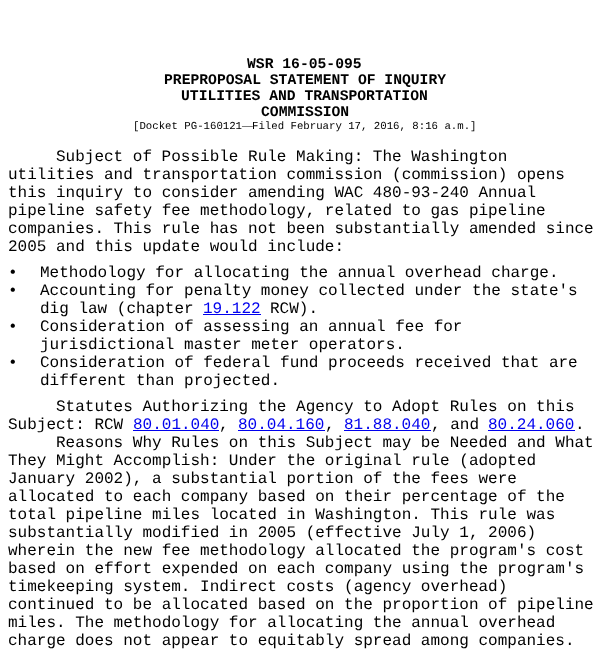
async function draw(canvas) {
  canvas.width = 609;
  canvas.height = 654;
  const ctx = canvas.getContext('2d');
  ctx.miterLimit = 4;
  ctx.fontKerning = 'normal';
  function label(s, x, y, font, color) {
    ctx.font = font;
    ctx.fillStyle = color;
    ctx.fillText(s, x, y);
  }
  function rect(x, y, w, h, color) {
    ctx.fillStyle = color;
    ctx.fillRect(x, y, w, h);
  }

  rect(0, 0, 609, 654, '#fff');
  label('WSR 16-05-095', 247, 68, 'bold 14.7px Liberation Mono', '#000');
  label('PREPROPOSAL STATEMENT OF INQUIRY', 164, 84, 'bold 14.7px Liberation Mono', '#000');
  label('UTILITIES AND TRANSPORTATION', 181, 100, 'bold 14.7px Liberation Mono', '#000');
  label('COMMISSION', 261, 116, 'bold 14.7px Liberation Mono', '#000');
  label('[Docket PG-160121', 133, 129, '10.7px Liberation Mono', '#000');
  label('—', 242, 129, '10.7px Liberation Serif', '#000');
  label('Filed February 17, 2016, 8:16 a.m.]', 252, 129, '10.7px Liberation Mono', '#000');
  label('Subject of Possible Rule Making: The Washington', 56, 161, '16px Liberation Mono', '#000');
  label('utilities and transportation commission (commission) opens', 8, 179, '16px Liberation Mono', '#000');
  label('this inquiry to consider amending WAC 480-93-240 Annual', 8, 197, '16px Liberation Mono', '#000');
  label('pipeline safety fee methodology, related to gas pipeline', 8, 215, '16px Liberation Mono', '#000');
  label('companies. This rule has not been substantially amended since', 8, 233, '16px Liberation Mono', '#000');
  label('2005 and this update would include:', 8, 251, '16px Liberation Mono', '#000');
  label('•', 8, 277, '16px Liberation Mono', '#000');
  label('Methodology for allocating the annual overhead charge.', 40, 277, '16px Liberation Mono', '#000');
  label('•', 8, 295, '16px Liberation Mono', '#000');
  label('Accounting for penalty money collected under the state\'s', 40, 295, '16px Liberation Mono', '#000');
  label('dig law (chapter', 40, 313, '16px Liberation Mono', '#000');
  label('19.122', 203, 313, '16px Liberation Mono', '#00e');
  rect(203, 314, 58, 1, '#00e');
  label('RCW).', 270, 313, '16px Liberation Mono', '#000');
  label('•', 8, 331, '16px Liberation Mono', '#000');
  label('Consideration of assessing an annual fee for', 40, 331, '16px Liberation Mono', '#000');
  label('jurisdictional master meter operators.', 40, 349, '16px Liberation Mono', '#000');
  label('•', 8, 367, '16px Liberation Mono', '#000');
  label('Consideration of federal fund proceeds received that are', 40, 367, '16px Liberation Mono', '#000');
  label('different than projected.', 40, 385, '16px Liberation Mono', '#000');
  label('Statutes Authorizing the Agency to Adopt Rules on this', 56, 411, '16px Liberation Mono', '#000');
  label('Subject: RCW', 8, 429, '16px Liberation Mono', '#000');
  label('80.01.040', 133, 429, '16px Liberation Mono', '#00e');
  rect(133, 430, 86, 1, '#00e');
  label(',', 219, 429, '16px Liberation Mono', '#000');
  label('80.04.160', 238, 429, '16px Liberation Mono', '#00e');
  rect(238, 430, 87, 1, '#00e');
  label(',', 325, 429, '16px Liberation Mono', '#000');
  label('81.88.040', 344, 429, '16px Liberation Mono', '#00e');
  rect(344, 430, 87, 1, '#00e');
  label(', and', 431, 429, '16px Liberation Mono', '#000');
  label('80.24.060', 488, 429, '16px Liberation Mono', '#00e');
  rect(488, 430, 87, 1, '#00e');
  label('.', 575, 429, '16px Liberation Mono', '#000');
  label('Reasons Why Rules on this Subject may be Needed and What', 56, 447, '16px Liberation Mono', '#000');
  label('They Might Accomplish: Under the original rule (adopted', 8, 465, '16px Liberation Mono', '#000');
  label('January 2002), a substantial portion of the fees were', 8, 483, '16px Liberation Mono', '#000');
  label('allocated to each company based on their percentage of the', 8, 501, '16px Liberation Mono', '#000');
  label('total pipeline miles located in Washington. This rule was', 8, 519, '16px Liberation Mono', '#000');
  label('substantially modified in 2005 (effective July 1, 2006)', 8, 537, '16px Liberation Mono', '#000');
  label('wherein the new fee methodology allocated the program\'s cost', 8, 555, '16px Liberation Mono', '#000');
  label('based on effort expended on each company using the program\'s', 8, 573, '16px Liberation Mono', '#000');
  label('timekeeping system. Indirect costs (agency overhead)', 8, 591, '16px Liberation Mono', '#000');
  label('continued to be allocated based on the proportion of pipeline', 8, 609, '16px Liberation Mono', '#000');
  label('miles. The methodology for allocating the annual overhead', 8, 627, '16px Liberation Mono', '#000');
  label('charge does not appear to equitably spread among companies.', 8, 645, '16px Liberation Mono', '#000');
}

draw(document.querySelector('canvas'));
